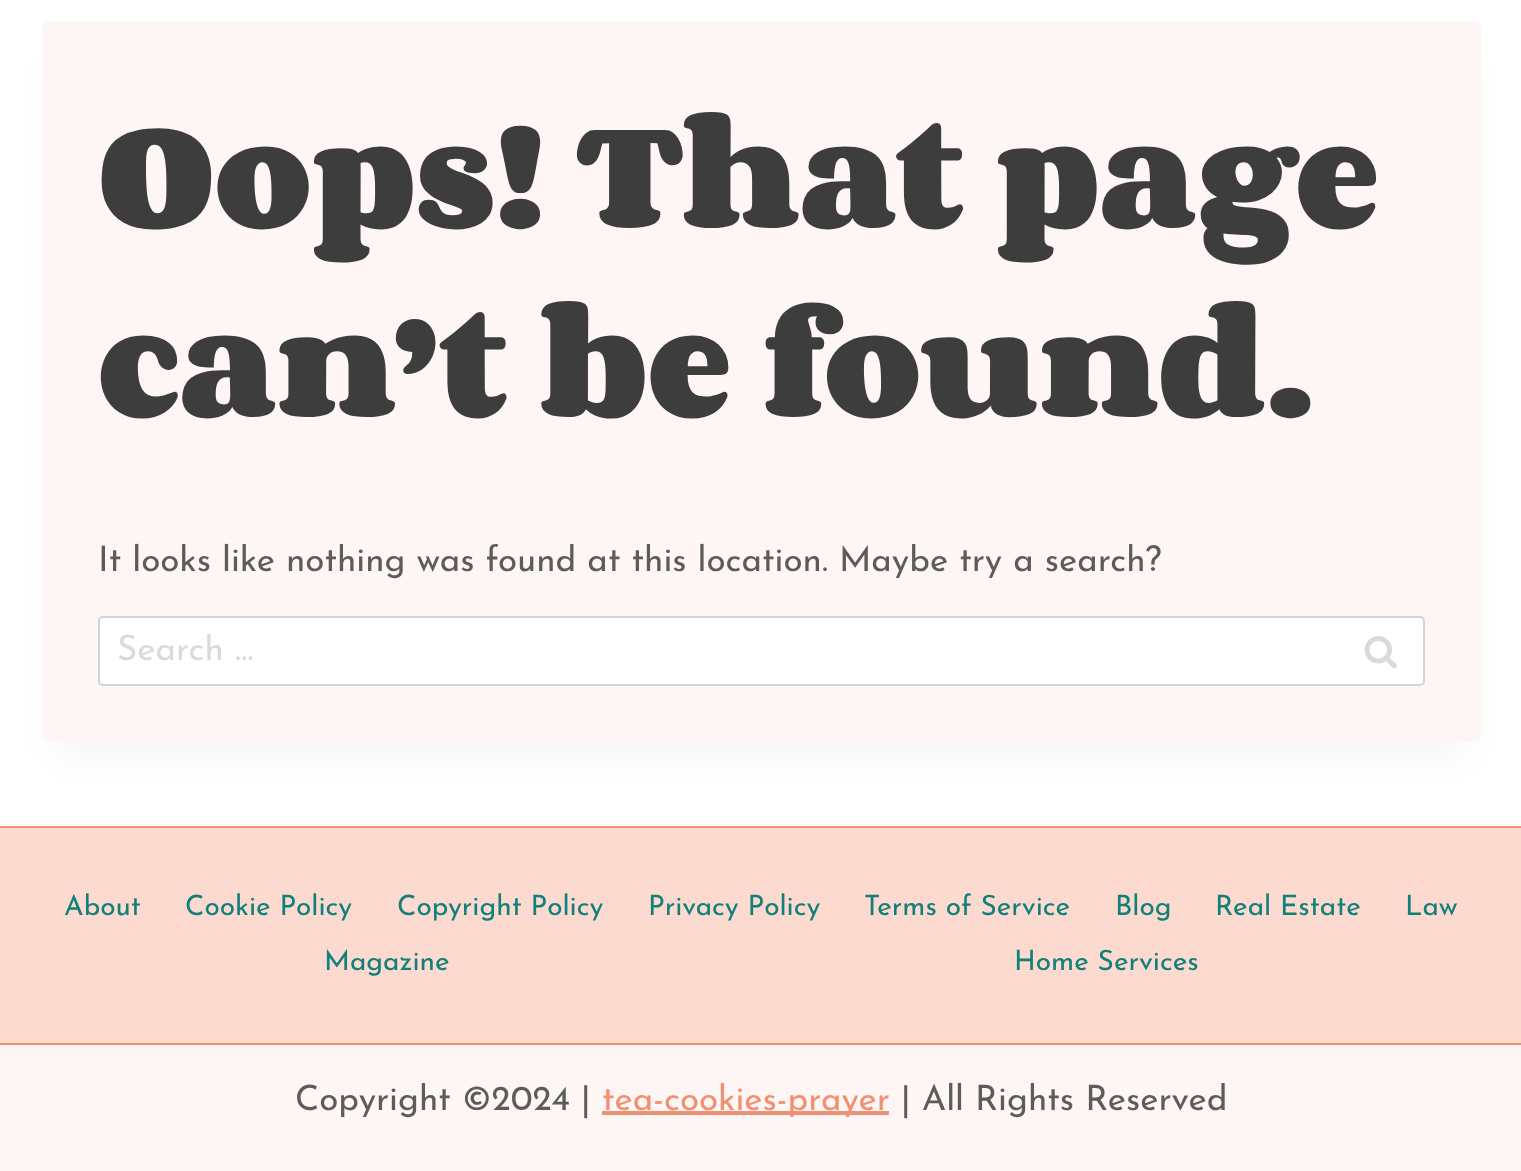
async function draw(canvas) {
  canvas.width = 1521;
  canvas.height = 1171;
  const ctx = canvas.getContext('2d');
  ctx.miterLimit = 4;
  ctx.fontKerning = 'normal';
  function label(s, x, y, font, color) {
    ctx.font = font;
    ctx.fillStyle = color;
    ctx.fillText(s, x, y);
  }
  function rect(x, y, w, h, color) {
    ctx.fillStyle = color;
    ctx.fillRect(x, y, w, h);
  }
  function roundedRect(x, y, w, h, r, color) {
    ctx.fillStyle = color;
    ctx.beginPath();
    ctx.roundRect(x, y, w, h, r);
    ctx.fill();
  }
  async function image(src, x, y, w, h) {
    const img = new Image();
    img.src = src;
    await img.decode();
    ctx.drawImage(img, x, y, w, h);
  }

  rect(0, 0, 1521, 1171, '#fff');
  ctx.fillStyle = '#0000000d';
  ctx.filter = 'blur(22px)';
  ctx.beginPath();
  ctx.rect(60, 65, 1403, 686);
  ctx.fill();
  ctx.filter = 'none';
  roundedRect(42, 21, 1439, 721, 7, '#fef6f4');
  label('Oops! That page', 98, 228, 'bold 126px Corben', '#3d3d3e');
  label('can’t be found.', 98, 417, 'bold 126px Corben', '#3d3d3e');
  label('It looks like nothing was found at this location. Maybe try a search?', 98, 571, '35px Josefin Sans', '#5c5c5c');
  ctx.fillStyle = '#fff';
  ctx.beginPath();
  ctx.roundRect(99, 617, 1325, 68, 4);
  ctx.fill();
  ctx.strokeStyle = '#cbd5e0';
  ctx.lineWidth = 2;
  ctx.stroke();
  ctx.save();
  ctx.beginPath();
  ctx.rect(117, 634, 1169, 35);
  ctx.clip();
  label('Search …', 117, 660, '35px Josefin Sans', '#d7dbde');
  ctx.restore();
  await image('assets/img1.png', 1364, 636, 33, 33);
  rect(0, 828, 1521, 215, '#fcdacf');
  rect(0, 826, 1521, 2, '#f19072');
  rect(0, 1043, 1521, 2, '#f19072');
  label('About', 64, 915, '28px Josefin Sans', '#12807a');
  label('Cookie Policy', 185, 915, '28px Josefin Sans', '#12807a');
  label('Copyright Policy', 397, 915, '28px Josefin Sans', '#12807a');
  label('Privacy Policy', 648, 915, '28px Josefin Sans', '#12807a');
  label('Terms of Service', 864, 915, '28px Josefin Sans', '#12807a');
  label('Blog', 1115, 915, '28px Josefin Sans', '#12807a');
  label('Real Estate', 1215, 915, '28px Josefin Sans', '#12807a');
  label('Law', 1405, 915, '28px Josefin Sans', '#12807a');
  label('Magazine', 324, 970, '28px Josefin Sans', '#12807a');
  label('Home Services', 1014, 970, '28px Josefin Sans', '#12807a');
  rect(0, 1045, 1521, 126, '#fef6f4');
  label('Copyright ©2024 |', 295, 1110, '35px Josefin Sans', '#5c5c5c');
  rect(602, 1111, 287, 4, '#f19072');
  label('tea-cookies-prayer', 602, 1110, '35px Josefin Sans', '#f19072');
  label('| All Rights Reserved', 901, 1110, '35px Josefin Sans', '#5c5c5c');
}

draw(document.querySelector('canvas'));
